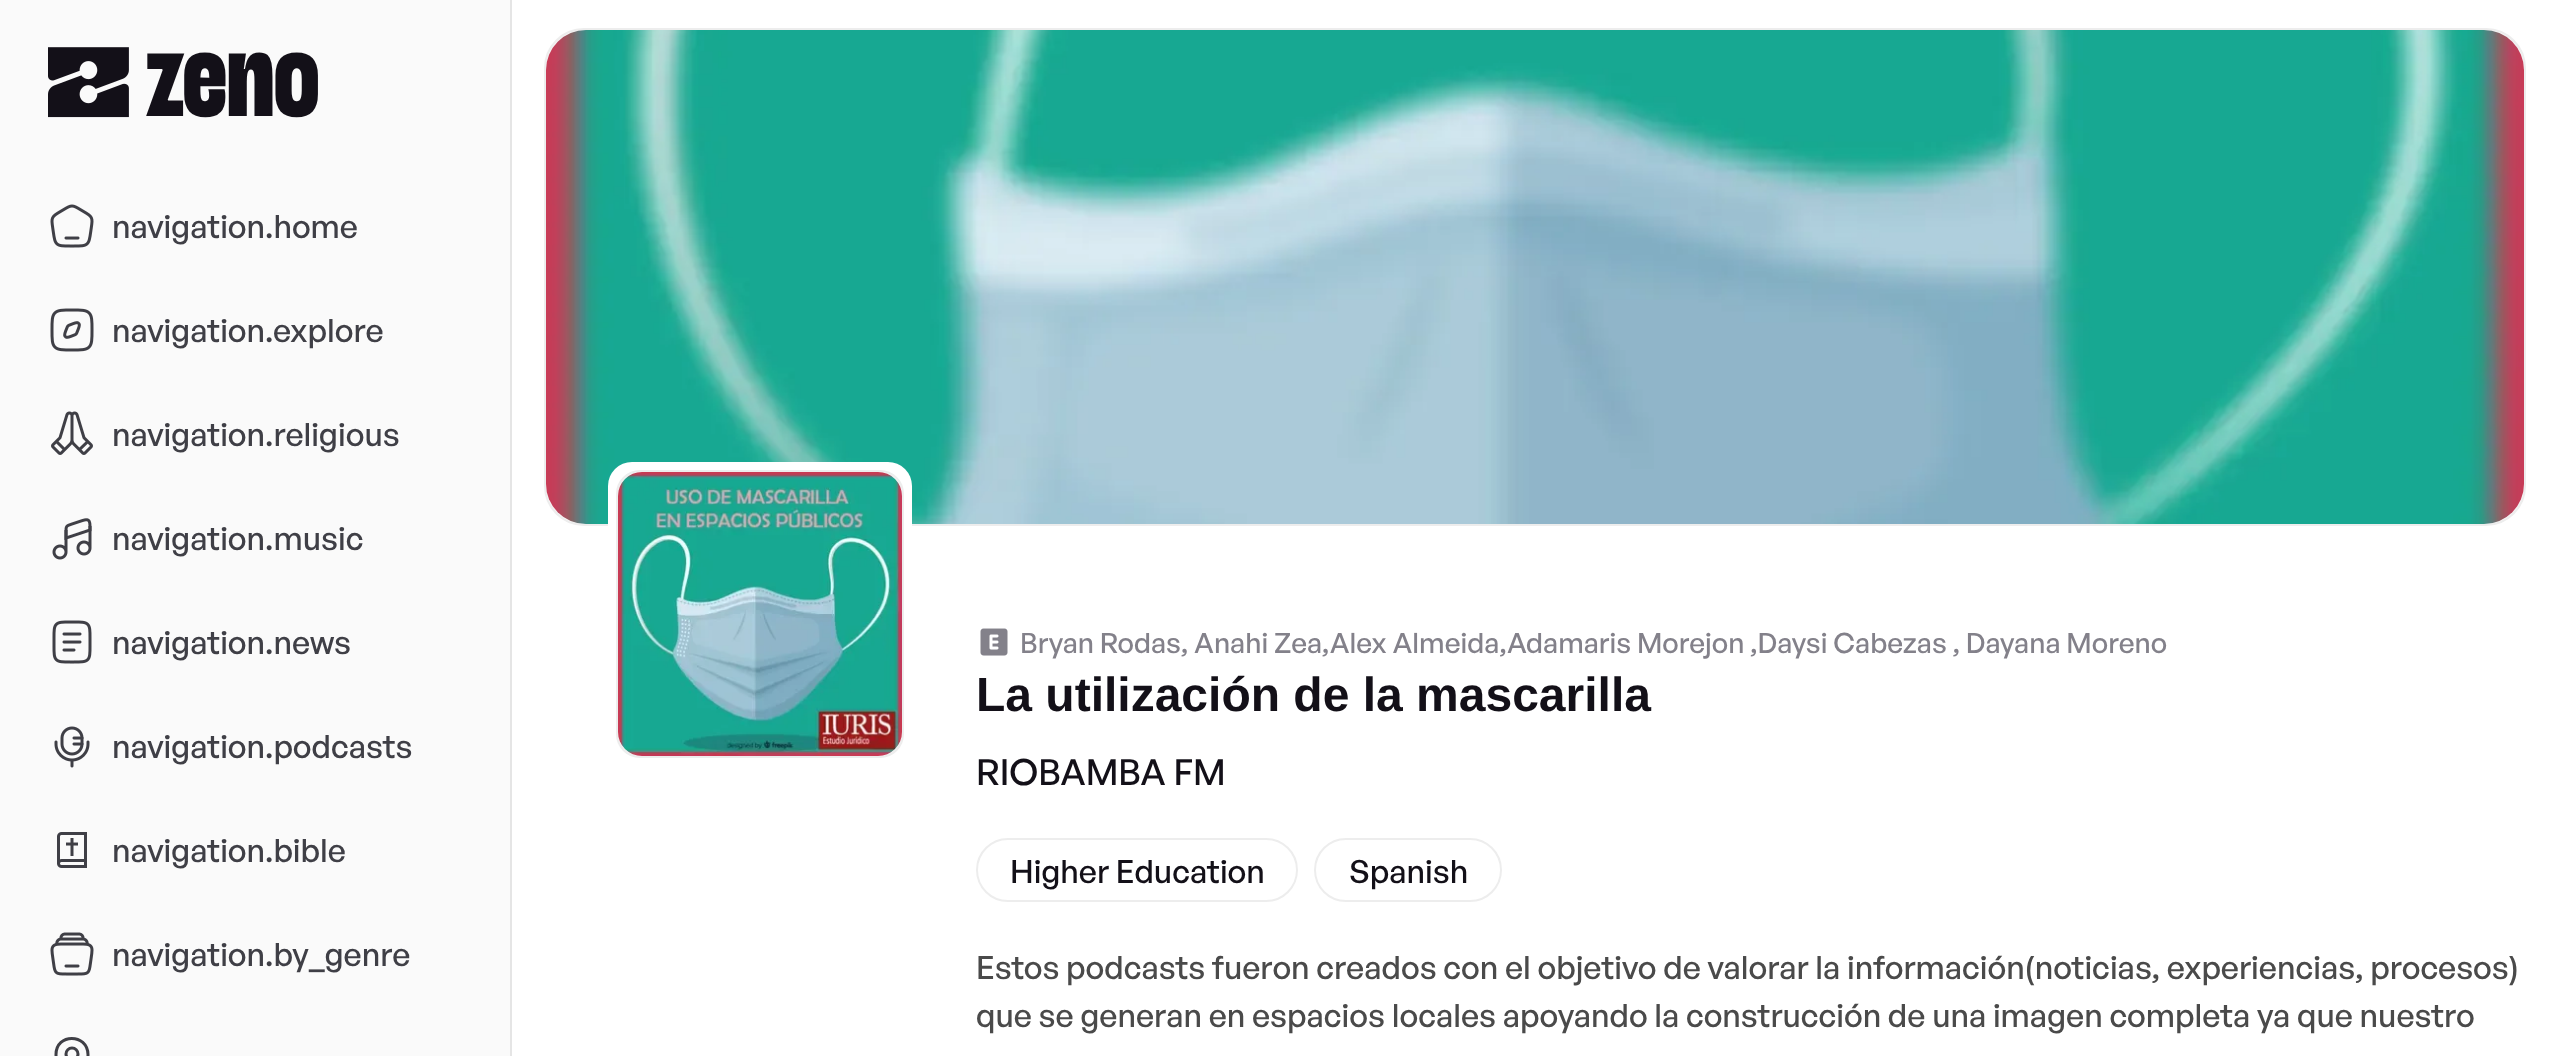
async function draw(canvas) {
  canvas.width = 2558;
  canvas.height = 1056;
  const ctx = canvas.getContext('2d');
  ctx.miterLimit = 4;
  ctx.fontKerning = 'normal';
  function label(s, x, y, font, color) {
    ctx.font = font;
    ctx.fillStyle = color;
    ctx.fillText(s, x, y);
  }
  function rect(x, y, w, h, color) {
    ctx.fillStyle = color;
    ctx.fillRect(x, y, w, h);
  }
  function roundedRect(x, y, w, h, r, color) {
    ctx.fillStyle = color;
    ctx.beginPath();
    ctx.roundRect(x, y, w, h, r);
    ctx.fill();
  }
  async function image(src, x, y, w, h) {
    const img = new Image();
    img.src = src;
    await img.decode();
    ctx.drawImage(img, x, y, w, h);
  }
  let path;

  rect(0, 0, 2558, 1056, '#fff');
  rect(510, 0, 2, 1056, '#e5e5e5');
  rect(0, 0, 510, 1056, '#fafafa');
  await image('assets/img1.png', 48, 47, 81, 71);
  label('zeno', 146, 116, '120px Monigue', '#131018');
  await image('assets/img2.png', 50, 204, 44, 44);
  label('navigation.home', 112, 238, '500 32px General Sans', '#3f3f46');
  await image('assets/img3.png', 50, 308, 44, 44);
  label('navigation.explore', 112, 342, '500 32px General Sans', '#3f3f46');
  await image('assets/img4.png', 51, 411, 42, 44);
  label('navigation.religious', 112, 446, '500 32px General Sans', '#3f3f46');
  await image('assets/img5.png', 52, 518, 40, 42);
  label('navigation.music', 112, 550, '500 32px General Sans', '#3f3f46');
  await image('assets/img6.png', 52, 620, 40, 44);
  label('navigation.news', 112, 654, '500 32px General Sans', '#3f3f46');
  await image('assets/img7.png', 54, 726, 36, 42);
  label('navigation.podcasts', 112, 758, '500 32px General Sans', '#3f3f46');
  await image('assets/img8.png', 57, 832, 30, 36);
  label('navigation.bible', 112, 862, '500 32px General Sans', '#3f3f46');
  await image('assets/img9.png', 50, 932, 44, 44);
  label('navigation.by_genre', 112, 966, '500 32px General Sans', '#3f3f46');
  path = new Path2D('M56 1054.5C56 1033 87.5 1033 88 1054.5C88 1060 86 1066 82.5 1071C70 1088.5 56 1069 56 1054.5Z');
  ctx.strokeStyle = '#3f3f46';
  ctx.lineWidth = 3;
  ctx.stroke(path);
  ctx.beginPath();
  ctx.arc(72, 1054, 6, 0, 2 * Math.PI);
  ctx.stroke();
  ctx.fillStyle = '#f6f6f6';
  ctx.beginPath();
  ctx.roundRect(545, 29, 1980, 496, 39);
  ctx.fill();
  ctx.strokeStyle = '#ededed';
  ctx.lineWidth = 2;
  ctx.stroke();
  await image('assets/img10.png', 546, 30, 1978, 494);
  roundedRect(608, 462, 304, 304, 24, '#fff');
  ctx.fillStyle = '#f6f6f6';
  ctx.beginPath();
  ctx.roundRect(617, 471, 286, 286, 23);
  ctx.fill();
  ctx.stroke();
  await image('assets/img11.png', 618, 472, 284, 284);
  await image('assets/img12.png', 980, 628, 28, 28);
  label('Bryan Rodas, Anahi Zea,Alex Almeida,Adamaris Morejon ,Daysi Cabezas , Dayana Moreno', 1020, 653, '500 28px General Sans', '#83818a');
  label('La utilización de la mascarilla', 976, 711, 'bold 48px Liberation Sans', '#131018');
  label('RIOBAMBA FM', 976, 785, '500 36px General Sans', '#131018');
  ctx.beginPath();
  ctx.roundRect(977, 839, 320, 62, 31);
  ctx.stroke();
  label('Higher Education', 1010, 883, '500 32px General Sans', '#131018');
  ctx.beginPath();
  ctx.roundRect(1315, 839, 186, 62, 31);
  ctx.stroke();
  label('Spanish', 1349, 883, '500 32px General Sans', '#131018');
  label('Estos podcasts fueron creados con el objetivo de valorar la información(noticias, experiencias, procesos)', 976, 979, '500 32px General Sans', '#4a4a4a');
  label('que se generan en espacios locales apoyando la construcción de una imagen completa ya que nuestro', 976, 1027, '500 32px General Sans', '#4a4a4a');
}

draw(document.querySelector('canvas'));
